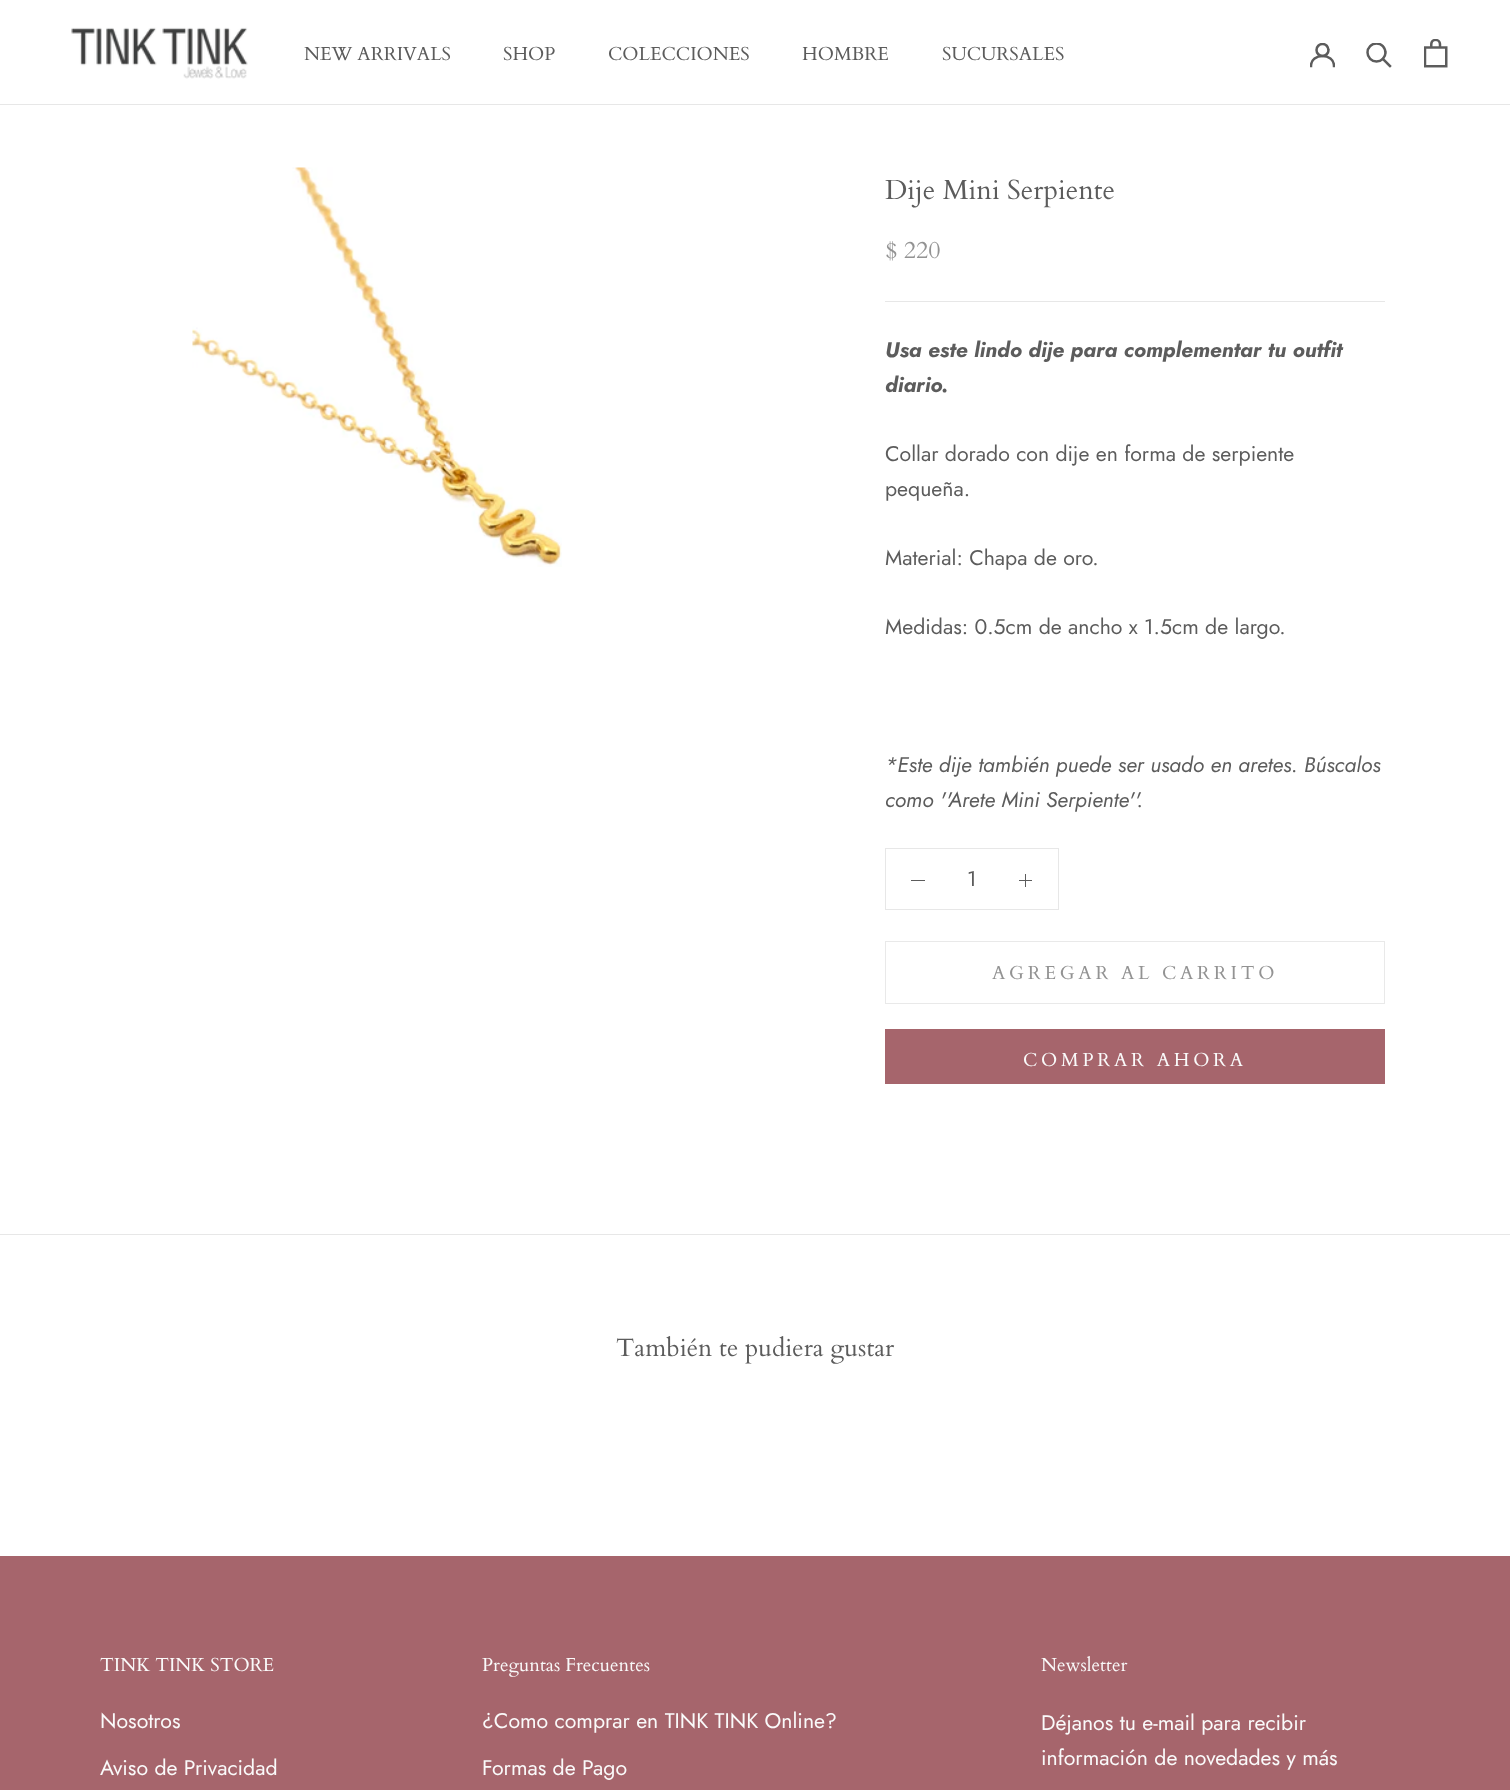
async function draw(canvas) {
  canvas.width = 1510;
  canvas.height = 1790;
  const ctx = canvas.getContext('2d');
  ctx.miterLimit = 4;
  ctx.fontKerning = 'normal';
  function label(s, x, y, font, color) {
    ctx.font = font;
    ctx.fillStyle = color;
    ctx.fillText(s, x, y);
  }
  function rect(x, y, w, h, color) {
    ctx.fillStyle = color;
    ctx.fillRect(x, y, w, h);
  }
  async function image(src, x, y, w, h) {
    const img = new Image();
    img.src = src;
    await img.decode();
    ctx.drawImage(img, x, y, w, h);
  }
  let path;

  rect(0, 0, 1510, 1790, '#fff');
  rect(0, 104, 1510, 1, '#e7e7e7');
  await image('assets/img1.png', 71, 27, 177, 52);
  label('NEW ARRIVALS', 304, 60, '18.75px Cardo', '#5c5c5c');
  label('SHOP', 503, 60, '18.75px Cardo', '#5c5c5c');
  label('COLECCIONES', 608, 60, '18.75px Cardo', '#5c5c5c');
  label('HOMBRE', 802, 60, '18.75px Cardo', '#5c5c5c');
  label('SUCURSALES', 942, 60, '18.75px Cardo', '#5c5c5c');
  ctx.save();
  ctx.beginPath();
  ctx.rect(1310, 43, 25, 25);
  ctx.clip();
  path = new Path2D('M1311 66C1311 52.5 1334 52.5 1334 66');
  ctx.strokeStyle = '#5c5c5c';
  ctx.lineWidth = 2.5;
  ctx.lineCap = 'square';
  ctx.stroke(path);
  ctx.beginPath();
  ctx.arc(1322.5, 50, 6, 0, 2 * Math.PI);
  ctx.stroke();
  ctx.restore();
  path = new Path2D('M1390 66L1383 59');
  ctx.strokeStyle = '#5c5c5c';
  ctx.lineWidth = 2.5;
  ctx.lineCap = 'square';
  ctx.stroke(path);
  ctx.save();
  ctx.beginPath();
  ctx.rect(1366, 43, 27, 26);
  ctx.clip();
  ctx.beginPath();
  ctx.arc(1376.5, 52.5, 9, 0, 2 * Math.PI);
  ctx.stroke();
  ctx.restore();
  await image('assets/img2.png', 1424, 39, 24, 29);
  await image('assets/img3.png', 192, 167, 370, 400);
  label('Dije Mini Serpiente', 885, 199, '27.5px Cardo', '#5c5c5c');
  label('$ 220', 885, 258, '24px Cardo', '#939393');
  rect(885, 301, 500, 1, '#e7e7e7');
  label('Usa este lindo dije para complementar tu outfit', 885, 357, 'italic bold 21.25px Jost', '#5c5c5c');
  label('diario.', 885, 392, 'italic bold 21.25px Jost', '#5c5c5c');
  label('Collar dorado con dije en forma de serpiente', 885, 461, '21.25px Jost', '#5c5c5c');
  label('pequeña.', 885, 496, '21.25px Jost', '#5c5c5c');
  label('Material: Chapa de oro.', 885, 565, '21.25px Jost', '#5c5c5c');
  label('Medidas: 0.5cm de ancho x 1.5cm de largo.', 885, 634, '21.25px Jost', '#5c5c5c');
  label('*Este dije también puede ser usado en aretes. Búscalos', 885, 772, 'italic 21.25px Jost', '#5c5c5c');
  label('como \'\'Arete Mini Serpiente\'\'.', 885, 807, 'italic 21.25px Jost', '#5c5c5c');
  ctx.strokeStyle = '#e7e7e7';
  ctx.lineWidth = 1;
  ctx.strokeRect(885.5, 848.5, 173, 61);
  rect(911, 880, 14, 1, '#5c5c5c');
  label('1', 967, 886, '21.25px Jost', '#5c5c5c');
  rect(1025, 874, 1, 13, '#5c5c5c');
  rect(1019, 880, 13, 1, '#5c5c5c');
  ctx.strokeStyle = '#e9e9e9';
  ctx.strokeRect(885.5, 941.5, 499, 62);
  ctx.letterSpacing = '3.75px';
  label('AGREGAR AL CARRITO', 992, 979, '18.75px Cardo', '#939393');
  ctx.strokeStyle = '#a6656c';
  ctx.strokeRect(885.5, 1029.5, 499, 54);
  rect(886, 1030, 498, 53, '#a6656c');
  label('COMPRAR AHORA', 1023, 1066, '18.75px Cardo', '#fafafa');
  rect(0, 1234, 1510, 1, '#e7e7e7');
  ctx.letterSpacing = '0px';
  label('También te pudiera gustar', 616, 1356, '25px Cardo', '#5c5c5c');
  rect(0, 1556, 1510, 234, '#a6656c');
  label('TINK TINK STORE', 100, 1671, '18.75px Cardo', '#fafafa');
  label('Nosotros', 100, 1728, '21.25px Jost', '#fafafa');
  label('Aviso de Privacidad', 100, 1775, '21.25px Jost', '#fafafa');
  label('Preguntas Frecuentes', 482, 1671, '18.75px Cardo', '#fafafa');
  label('¿Como comprar en TINK TINK Online?', 482, 1728, '21.25px Jost', '#fafafa');
  label('Formas de Pago', 482, 1775, '21.25px Jost', '#fafafa');
  label('Newsletter', 1041, 1671, '18.75px Cardo', '#fafafa');
  label('Déjanos tu e-mail para recibir', 1041, 1730, '21.25px Jost', '#fafafa');
  label('información de novedades y más', 1041, 1765, '21.25px Jost', '#fafafa');
}

draw(document.querySelector('canvas'));
